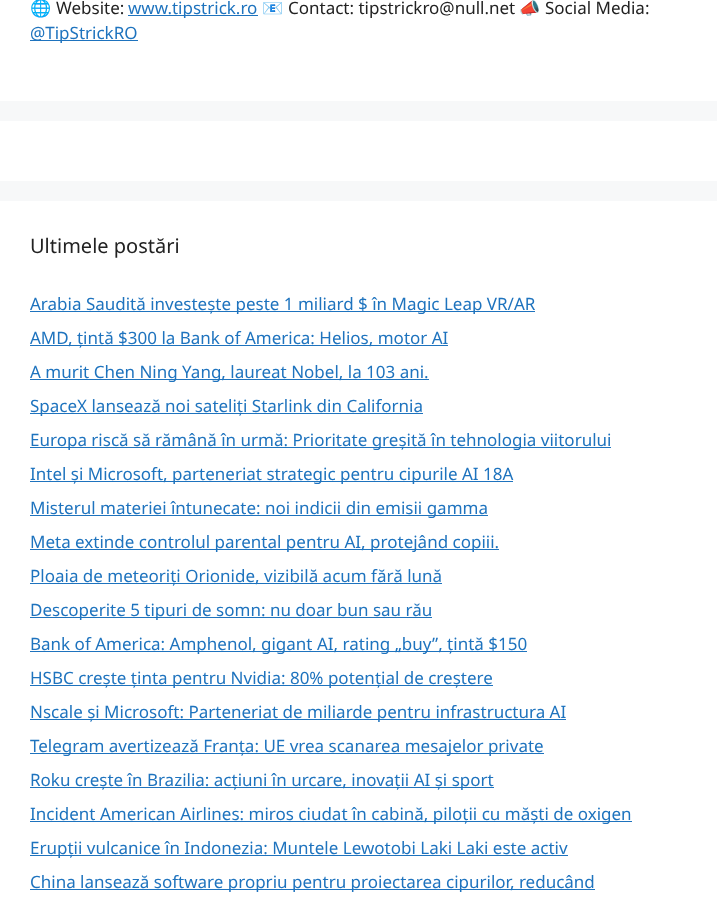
async function draw(canvas) {
  canvas.width = 717;
  canvas.height = 904;
  const ctx = canvas.getContext('2d');
  ctx.miterLimit = 4;
  ctx.fontKerning = 'normal';
  function label(s, x, y, font, color) {
    ctx.font = font;
    ctx.fillStyle = color;
    ctx.fillText(s, x, y);
  }
  function rect(x, y, w, h, color) {
    ctx.fillStyle = color;
    ctx.fillRect(x, y, w, h);
  }

  rect(0, 0, 717, 904, '#f7f8f9');
  rect(0, 0, 717, 101, '#fff');
  label('🌐', 30, 14, '17px Noto Color Emoji', '#222');
  label('Website:', 56, 14, '17px Noto Sans', '#222');
  rect(128, 15, 130, 1, '#1e73be');
  label('www.tipstrick.ro', 128, 14, '17px Noto Sans', '#1e73be');
  label('📧', 262, 14, '17px Noto Color Emoji', '#222');
  label('Contact: tipstrickro@null.net', 288, 14, '17px Noto Sans', '#222');
  label('📣', 519, 14, '17px Noto Color Emoji', '#222');
  label('Social Media:', 545, 14, '17px Noto Sans', '#222');
  rect(30, 40, 108, 1, '#1e73be');
  label('@TipStrickRO', 30, 39, '17px Noto Sans', '#1e73be');
  rect(0, 121, 717, 60, '#fff');
  rect(0, 201, 717, 703, '#fff');
  label('Ultimele postări', 30, 253, '20px Noto Sans', '#222');
  rect(30, 311, 505, 1, '#1e73be');
  label('Arabia Saudită investește peste 1 miliard $ în Magic Leap VR/AR', 30, 310, '17px Noto Sans', '#1e73be');
  rect(30, 345, 418, 1, '#1e73be');
  label('AMD, țintă $300 la Bank of America: Helios, motor AI', 30, 344, '17px Noto Sans', '#1e73be');
  rect(30, 379, 399, 1, '#1e73be');
  label('A murit Chen Ning Yang, laureat Nobel, la 103 ani.', 30, 378, '17px Noto Sans', '#1e73be');
  rect(30, 413, 393, 1, '#1e73be');
  label('SpaceX lansează noi sateliți Starlink din California', 30, 412, '17px Noto Sans', '#1e73be');
  rect(30, 447, 581, 1, '#1e73be');
  label('Europa riscă să rămână în urmă: Prioritate greșită în tehnologia viitorului', 30, 446, '17px Noto Sans', '#1e73be');
  rect(30, 481, 483, 1, '#1e73be');
  label('Intel și Microsoft, parteneriat strategic pentru cipurile AI 18A', 30, 480, '17px Noto Sans', '#1e73be');
  rect(30, 515, 458, 1, '#1e73be');
  label('Misterul materiei întunecate: noi indicii din emisii gamma', 30, 514, '17px Noto Sans', '#1e73be');
  rect(30, 549, 469, 1, '#1e73be');
  label('Meta extinde controlul parental pentru AI, protejând copiii.', 30, 548, '17px Noto Sans', '#1e73be');
  rect(30, 583, 412, 1, '#1e73be');
  label('Ploaia de meteoriți Orionide, vizibilă acum fără lună', 30, 582, '17px Noto Sans', '#1e73be');
  rect(30, 617, 402, 1, '#1e73be');
  label('Descoperite 5 tipuri de somn: nu doar bun sau rău', 30, 616, '17px Noto Sans', '#1e73be');
  rect(30, 651, 497, 1, '#1e73be');
  label('Bank of America: Amphenol, gigant AI, rating „buy”, țintă $150', 30, 650, '17px Noto Sans', '#1e73be');
  rect(30, 685, 463, 1, '#1e73be');
  label('HSBC crește ținta pentru Nvidia: 80% potențial de creștere', 30, 684, '17px Noto Sans', '#1e73be');
  rect(30, 719, 536, 1, '#1e73be');
  label('Nscale și Microsoft: Parteneriat de miliarde pentru infrastructura AI', 30, 718, '17px Noto Sans', '#1e73be');
  rect(30, 753, 514, 1, '#1e73be');
  label('Telegram avertizează Franța: UE vrea scanarea mesajelor private', 30, 752, '17px Noto Sans', '#1e73be');
  rect(30, 787, 464, 1, '#1e73be');
  label('Roku crește în Brazilia: acțiuni în urcare, inovații AI și sport', 30, 786, '17px Noto Sans', '#1e73be');
  rect(30, 821, 602, 1, '#1e73be');
  label('Incident American Airlines: miros ciudat în cabină, piloții cu măști de oxigen', 30, 820, '17px Noto Sans', '#1e73be');
  rect(30, 855, 538, 1, '#1e73be');
  label('Erupții vulcanice în Indonezia: Muntele Lewotobi Laki Laki este activ', 30, 854, '17px Noto Sans', '#1e73be');
  rect(30, 889, 565, 1, '#1e73be');
  label('China lansează software propriu pentru proiectarea cipurilor, reducând', 30, 888, '17px Noto Sans', '#1e73be');
}

draw(document.querySelector('canvas'));
